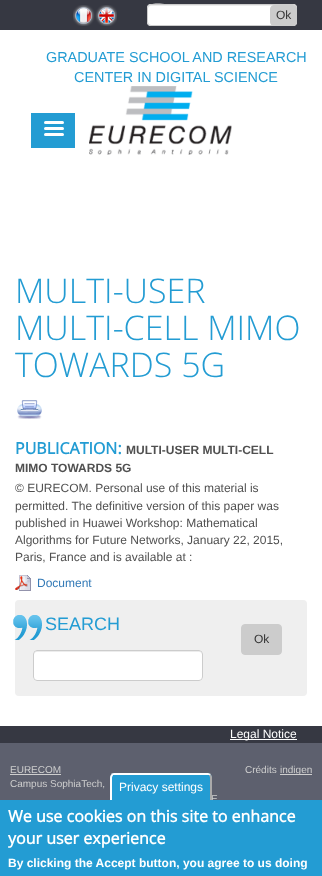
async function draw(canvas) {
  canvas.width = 322;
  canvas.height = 876;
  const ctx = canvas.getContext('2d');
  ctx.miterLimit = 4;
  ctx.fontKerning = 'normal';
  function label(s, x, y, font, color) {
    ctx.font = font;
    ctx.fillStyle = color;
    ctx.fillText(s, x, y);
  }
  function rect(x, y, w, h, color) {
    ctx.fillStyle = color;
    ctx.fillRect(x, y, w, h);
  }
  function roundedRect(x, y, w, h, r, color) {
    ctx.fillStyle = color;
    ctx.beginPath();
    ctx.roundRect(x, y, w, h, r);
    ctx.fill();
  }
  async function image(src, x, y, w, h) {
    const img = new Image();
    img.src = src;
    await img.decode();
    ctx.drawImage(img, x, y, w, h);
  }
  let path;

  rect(0, 0, 322, 876, '#fff');
  rect(0, 0, 322, 30, '#363842');
  await image('assets/img1.png', 73, 5, 22, 21);
  await image('assets/img2.png', 95, 5, 22, 21);
  roundedRect(147, 4, 150, 22, 4, '#fff');
  ctx.fillStyle = '#ececec';
  path = new Path2D('M151 6H293C295 6 296 7 296 9C296 7 296 6 294 5H175C167 5 148 0 148 9C148 7 149 6 151 6Z');
  ctx.fill(path);
  ctx.beginPath();
  ctx.roundRect(147.5, 4.5, 149, 21, 3.5);
  ctx.strokeStyle = '#ccc';
  ctx.stroke();
  ctx.fillStyle = '#ccc';
  ctx.beginPath();
  ctx.roundRect(270.5, 5.5, 26, 20, 3.5);
  ctx.fill();
  ctx.stroke();
  label('Ok', 276, 19, '12px Liberation Sans', '#333');
  label('GRADUATE SCHOOL AND RESEARCH', 46, 62, '14.4px Liberation Sans', '#239cd3');
  label('CENTER IN DIGITAL SCIENCE', 74, 82, '14.4px Liberation Sans', '#239cd3');
  await image('assets/img3.png', 89, 86, 143, 69);
  rect(31, 113, 44, 35, '#239cd3');
  roundedRect(44, 121, 20, 3, 1.5, '#fff');
  roundedRect(44, 127, 20, 3, 1.5, '#fff');
  roundedRect(44, 133, 20, 3, 1.5, '#fff');
  label('MULTI-USER', 15, 303, '300 34px Open Sans', '#239cd3');
  label('MULTI-CELL MIMO', 15, 340, '300 34px Open Sans', '#239cd3');
  label('TOWARDS 5G', 15, 377, '300 34px Open Sans', '#239cd3');
  await image('assets/img4.png', 17, 400, 25, 19);
  label('PUBLICATION:', 15, 454, 'bold 16px Open Sans', '#239cd3');
  label('MULTI-USER MULTI-CELL', 126, 454, 'bold 12px Liberation Sans', '#505050');
  label('MIMO TOWARDS 5G', 15, 472, 'bold 12px Liberation Sans', '#505050');
  label('© EURECOM. Personal use of this material is', 15, 492, '12px Liberation Sans', '#505050');
  label('permitted. The definitive version of this paper was', 15, 510, '12px Liberation Sans', '#505050');
  label('published in Huawei Workshop: Mathematical', 15, 527, '12px Liberation Sans', '#505050');
  label('Algorithms for Future Networks, January 22, 2015,', 15, 544, '12px Liberation Sans', '#505050');
  label('Paris, France and is available at :', 15, 561, '12px Liberation Sans', '#505050');
  await image('assets/img5.png', 15, 575, 16, 16);
  label('Document', 37, 587, '12px Liberation Sans', '#337ab7');
  roundedRect(15, 600, 292, 96, 4, '#efefef');
  await image('assets/img6.png', 13, 615, 29, 25);
  label('SEARCH', 45, 630, '18px Liberation Sans', '#239cd3');
  roundedRect(33, 650, 170, 31, 4, '#fff');
  ctx.fillStyle = '#ececec';
  path = new Path2D('M37 652H199C201 652 202 653 202 655V654C202 652 201 651 199 651H37C35 651 34 652 34 654V655C34 653 35 652 37 652Z');
  ctx.fill(path);
  ctx.beginPath();
  ctx.roundRect(33.5, 650.5, 169, 30, 3.5);
  ctx.stroke();
  ctx.fillStyle = '#ccc';
  ctx.beginPath();
  ctx.roundRect(241.5, 624.5, 40, 30, 3.5);
  ctx.fill();
  ctx.stroke();
  label('Ok', 254, 643, '12px Liberation Sans', '#333');
  rect(0, 726, 322, 17, '#363842');
  rect(230, 739, 67, 1, '#fff');
  label('Legal Notice', 230, 738, '12px Liberation Sans', '#fff');
  rect(0, 743, 322, 57, '#5d606e');
  label('EURECOM', 10, 773, '10px Liberation Sans', '#cecece');
  rect(10, 774, 51, 1, '#cecece');
  label('Crédits', 245, 773, '10px Liberation Sans', '#cecece');
  rect(280, 774, 32, 1, '#cecece');
  label('indigen', 280, 773, '10px Liberation Sans', '#cecece');
  label('Campus SophiaTech,', 10, 787, '10px Liberation Sans', '#cecece');
  label('E', 211, 802, '10px Liberation Sans', '#cecece');
  rect(0, 800, 322, 76, '#239cd3');
  ctx.beginPath();
  ctx.roundRect(110, 773, 102, 27, [5, 5, 0, 0]);
  ctx.fill();
  ctx.fillStyle = '#fff';
  path = new Path2D('M115 773H208L211 774L209 776V775C208 775 114 775 113 775V776L111 774C112 773 114 773 115 773Z');
  ctx.fill(path);
  ctx.fillStyle = '#aaa';
  path = new Path2D('M210.5 774.5C211.5 775 212 776 212 777.5V800H210V778C210 777 209.5 776 209 775.5Z');
  ctx.fill(path);
  ctx.fillStyle = '#fff';
  path = new Path2D('M112 800H110V778C110 776.5 110.5 775 111.5 774.5L113 775.5C112.5 776 112 777 112 778Z');
  ctx.fill(path);
  label('Privacy settings', 119, 791, '12px Liberation Sans', '#fff');
  label('We use cookies on this site to enhance', 8, 822, 'bold 16px Open Sans', '#fff');
  label('your user experience', 8, 844, 'bold 16px Open Sans', '#fff');
  label('By clicking the Accept button, you agree to us doing', 8, 867, 'bold 12px Liberation Sans', '#fff');
}

draw(document.querySelector('canvas'));
